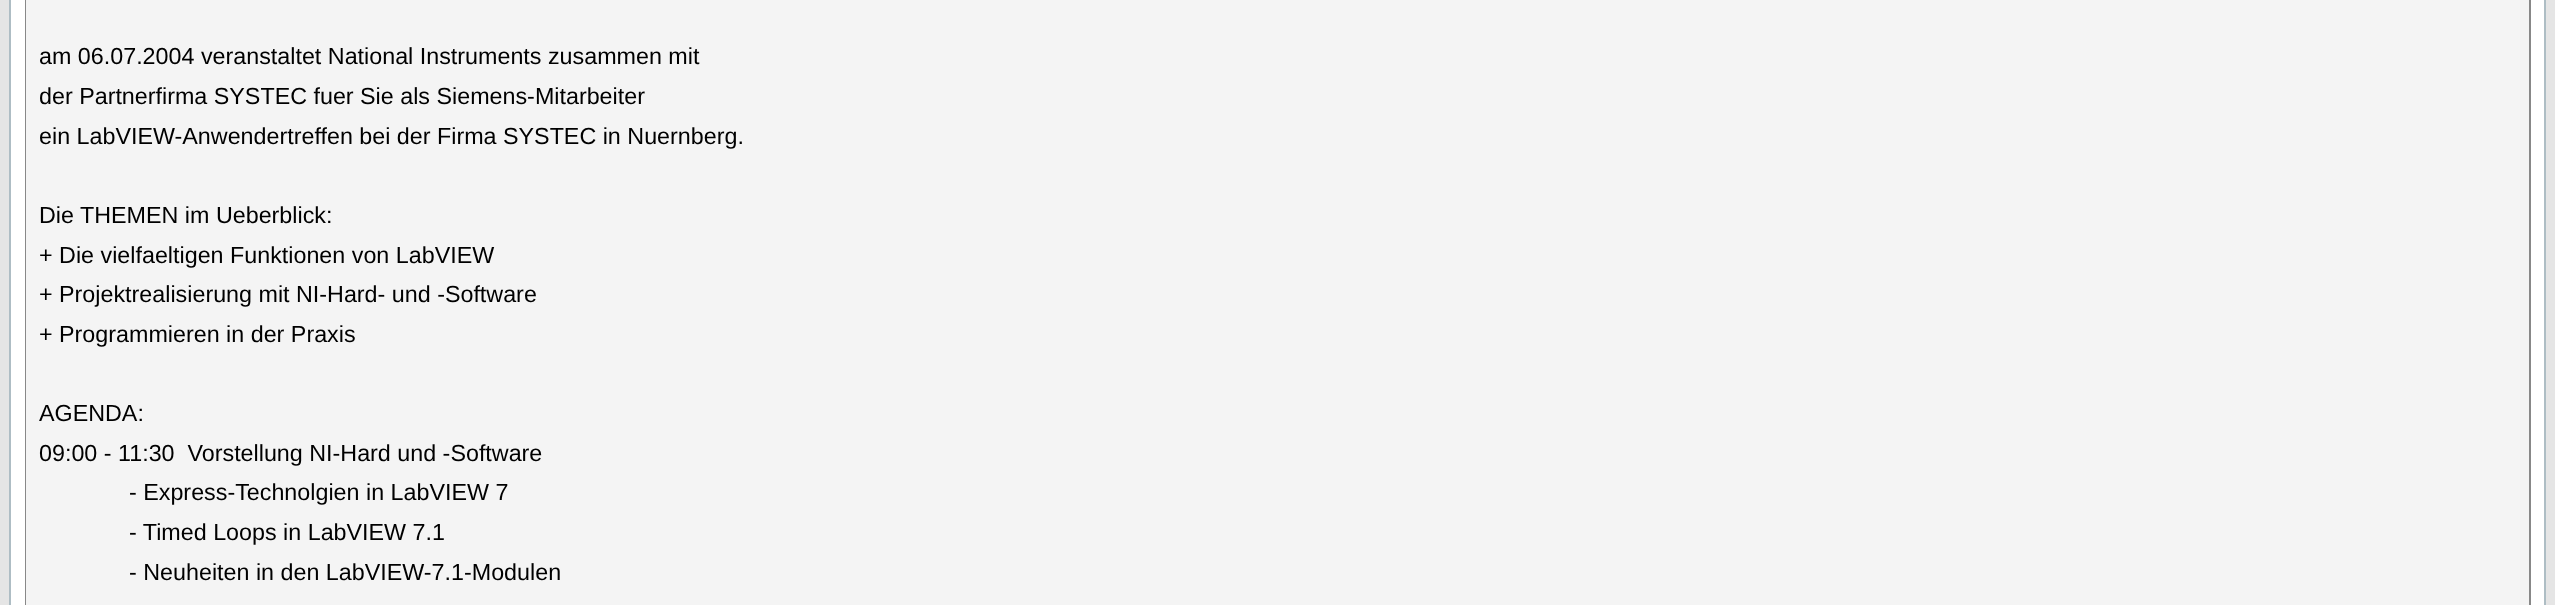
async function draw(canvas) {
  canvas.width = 2555;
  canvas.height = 605;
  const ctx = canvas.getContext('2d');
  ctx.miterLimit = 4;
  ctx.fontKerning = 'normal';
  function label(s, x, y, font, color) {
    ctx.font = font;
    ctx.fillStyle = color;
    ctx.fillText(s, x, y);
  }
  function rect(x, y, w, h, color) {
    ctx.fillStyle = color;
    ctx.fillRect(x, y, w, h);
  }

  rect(0, 0, 2555, 605, '#e5e5e5');
  ctx.fillStyle = '#fff';
  ctx.beginPath();
  ctx.rect(10, -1, 2535, 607);
  ctx.fill();
  ctx.strokeStyle = '#aebdc4';
  ctx.lineWidth = 2;
  ctx.stroke();
  ctx.strokeStyle = '#888';
  ctx.strokeRect(26, -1, 2504, 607);
  rect(26, 0, 2503, 605, '#f4f4f4');
  label('am 06.07.2004 veranstaltet National Instruments zusammen mit', 39, 64, '23.3px Liberation Sans', '#000');
  label('der Partnerfirma SYSTEC fuer Sie als Siemens-Mitarbeiter', 39, 104, '23.3px Liberation Sans', '#000');
  label('ein LabVIEW-Anwendertreffen bei der Firma SYSTEC in Nuernberg.', 39, 144, '23.3px Liberation Sans', '#000');
  label('Die THEMEN im Ueberblick:', 39, 223, '23.3px Liberation Sans', '#000');
  label('+ Die vielfaeltigen Funktionen von LabVIEW', 39, 263, '23.3px Liberation Sans', '#000');
  label('+ Projektrealisierung mit NI-Hard- und -Software', 39, 302, '23.3px Liberation Sans', '#000');
  label('+ Programmieren in der Praxis', 39, 342, '23.3px Liberation Sans', '#000');
  label('AGENDA:', 39, 421, '23.3px Liberation Sans', '#000');
  label('09:00 - 11:30  Vorstellung NI-Hard und -Software', 39, 461, '23.3px Liberation Sans', '#000');
  label('- Express-Technolgien in LabVIEW 7', 129, 500, '23.3px Liberation Sans', '#000');
  label('- Timed Loops in LabVIEW 7.1', 129, 540, '23.3px Liberation Sans', '#000');
  label('- Neuheiten in den LabVIEW-7.1-Modulen', 129, 580, '23.3px Liberation Sans', '#000');
}

draw(document.querySelector('canvas'));
